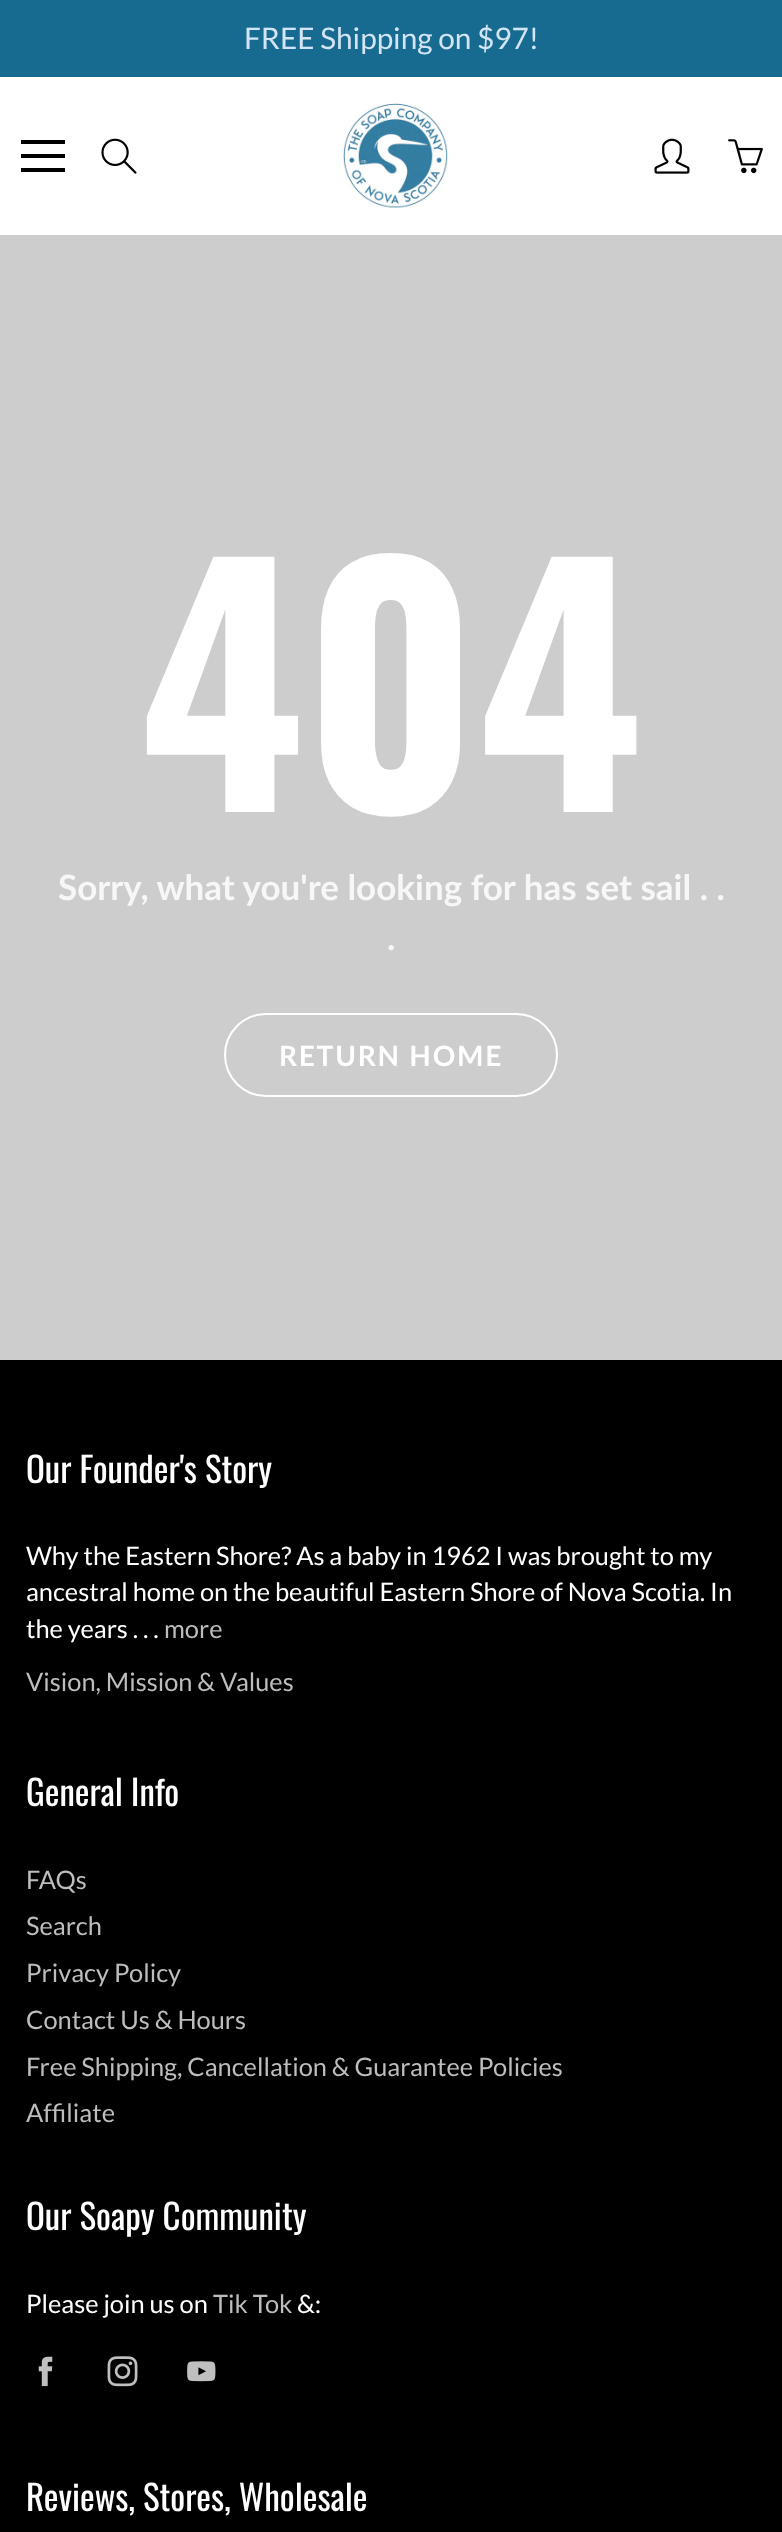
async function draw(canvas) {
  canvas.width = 782;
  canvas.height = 2532;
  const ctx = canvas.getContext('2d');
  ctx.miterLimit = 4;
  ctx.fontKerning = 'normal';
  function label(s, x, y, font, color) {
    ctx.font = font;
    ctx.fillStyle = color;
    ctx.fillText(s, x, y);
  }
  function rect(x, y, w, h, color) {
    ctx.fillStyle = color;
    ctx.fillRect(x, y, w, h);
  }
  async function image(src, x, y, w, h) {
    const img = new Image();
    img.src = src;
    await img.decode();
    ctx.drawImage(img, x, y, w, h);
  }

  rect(0, 0, 782, 2532, '#fff');
  rect(0, 0, 782, 77, '#176b90');
  label('FREE Shipping on $97!', 244, 49, '29.75px Lato', '#d4e4f7');
  rect(21, 154, 44, 4, '#000');
  rect(21, 140, 44, 4, '#000');
  rect(21, 168, 44, 4, '#000');
  await image('assets/img1.png', 101, 138, 36, 36);
  await image('assets/img2.png', 343, 103, 105, 105);
  await image('assets/img3.png', 654, 138, 36, 36);
  await image('assets/img4.png', 728, 139, 35, 35);
  rect(0, 235, 782, 1125, '#cdcdcd');
  label('404', 139, 812, 'bold 315px Oswald', '#fff');
  label('Sorry, what you\'re looking for has set sail . .', 58, 900, 'bold 35px Lato', '#f7f7f7');
  label('.', 387, 950, 'bold 35px Lato', '#f7f7f7');
  ctx.beginPath();
  ctx.roundRect(225, 1014, 332, 82, 41);
  ctx.strokeStyle = '#fff';
  ctx.lineWidth = 2;
  ctx.stroke();
  ctx.letterSpacing = '1.75px';
  label('RETURN HOME', 279, 1066, 'bold 28px Lato', '#fff');
  rect(0, 1360, 782, 1172, '#000');
  ctx.letterSpacing = '0px';
  label('Our Founder\'s Story', 26, 1483, '35px Oswald', '#fff');
  label('Why the Eastern Shore? As a baby in 1962 I was brought to my', 26, 1565, '25.4px Lato', '#fff');
  label('ancestral home on the beautiful Eastern Shore of Nova Scotia. In', 26, 1601, '25.4px Lato', '#fff');
  label('the years . . .', 26, 1638, '25.4px Lato', '#fff');
  label('more', 164, 1638, '25.4px Lato', '#bdbdbd');
  label('Vision, Mission & Values', 26, 1691, '25.4px Lato', '#bdbdbd');
  label('General Info', 26, 1806, '35px Oswald', '#fff');
  label('FAQs', 26, 1889, '25.4px Lato', '#bdbdbd');
  label('Search', 26, 1935, '25.4px Lato', '#bdbdbd');
  label('Privacy Policy', 26, 1982, '25.4px Lato', '#bdbdbd');
  label('Contact Us & Hours', 26, 2029, '25.4px Lato', '#bdbdbd');
  label('Free Shipping, Cancellation & Guarantee Policies', 26, 2076, '25.4px Lato', '#bdbdbd');
  label('Affiliate', 26, 2122, '25.4px Lato', '#bdbdbd');
  label('Our Soapy Community', 26, 2230, '35px Oswald', '#fff');
  label('Please join us on', 26, 2313, '25.4px Lato', '#fff');
  label('Tik Tok', 213, 2313, '25.4px Lato', '#bdbdbd');
  label('&:', 297, 2313, '25.4px Lato', '#fff');
  await image('assets/img5.png', 38, 2356, 15, 31);
  await image('assets/img6.png', 107, 2356, 31, 31);
  await image('assets/img7.png', 187, 2361, 29, 21);
  label('Reviews, Stores, Wholesale', 26, 2511, '35px Oswald', '#fff');
}

draw(document.querySelector('canvas'));
